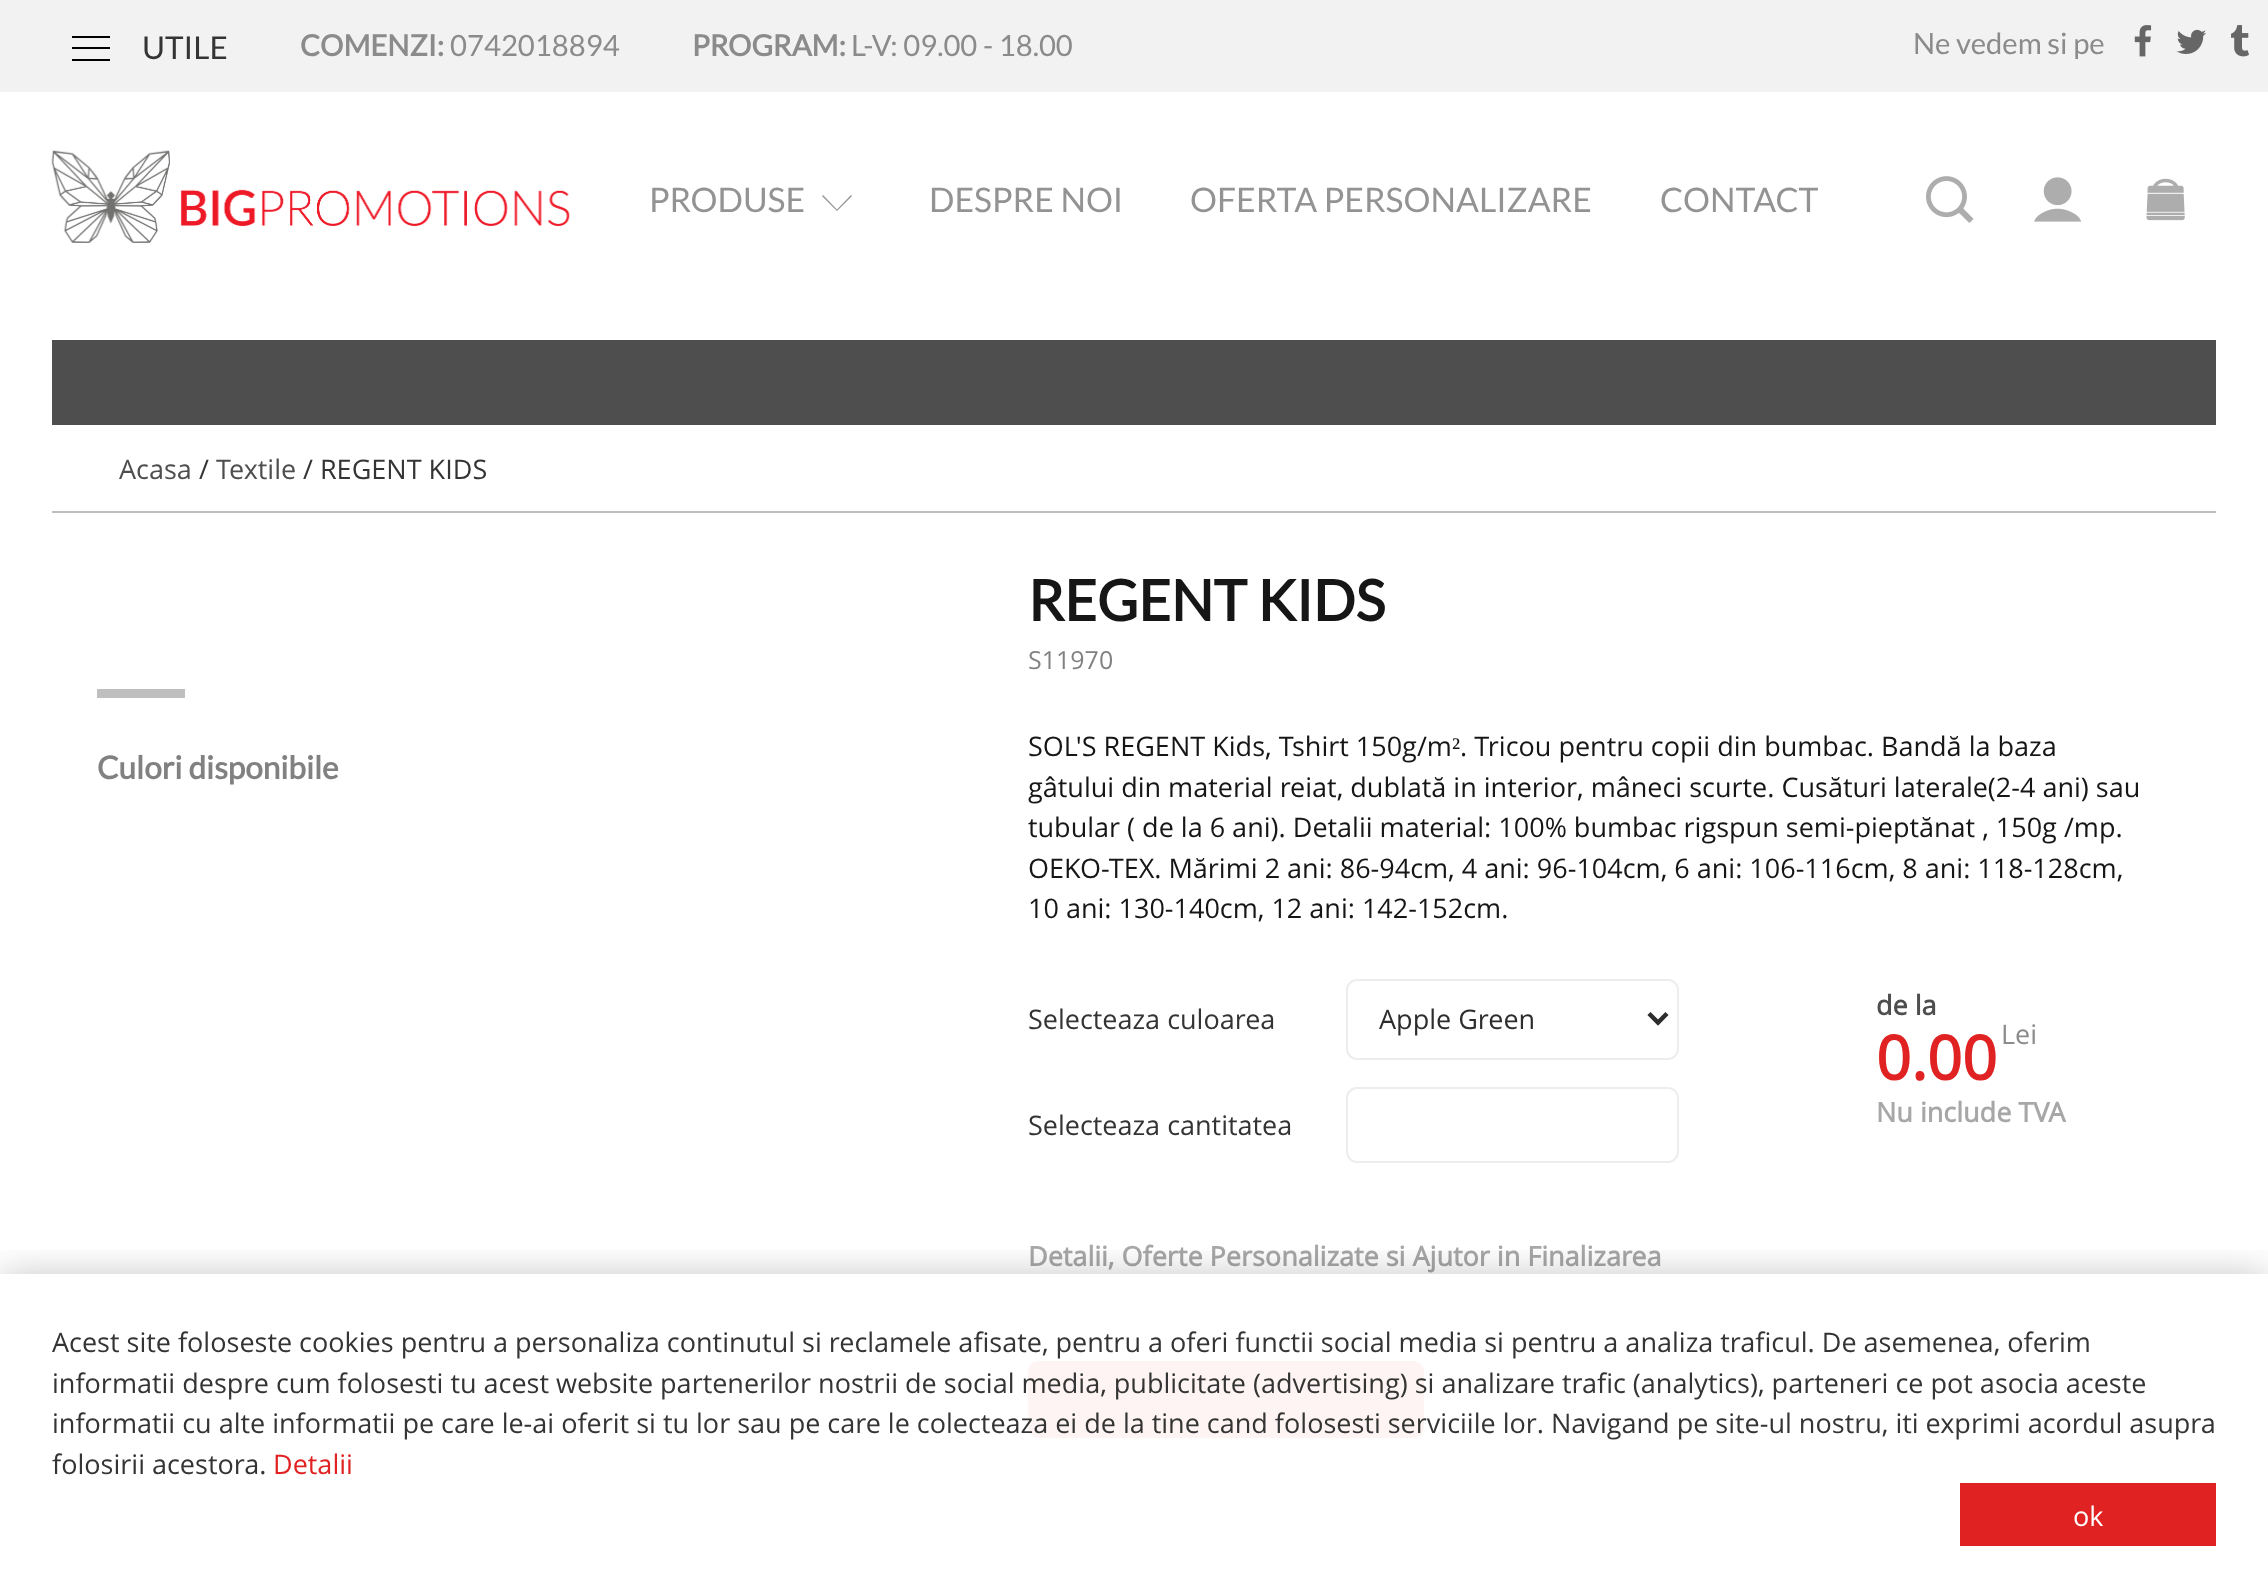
async function draw(canvas) {
  canvas.width = 2268;
  canvas.height = 1573;
  const ctx = canvas.getContext('2d');
  ctx.miterLimit = 4;
  ctx.fontKerning = 'normal';
  function label(s, x, y, font, color) {
    ctx.font = font;
    ctx.fillStyle = color;
    ctx.fillText(s, x, y);
  }
  function rect(x, y, w, h, color) {
    ctx.fillStyle = color;
    ctx.fillRect(x, y, w, h);
  }
  function roundedRect(x, y, w, h, r, color) {
    ctx.fillStyle = color;
    ctx.beginPath();
    ctx.roundRect(x, y, w, h, r);
    ctx.fill();
  }
  async function image(src, x, y, w, h) {
    const img = new Image();
    img.src = src;
    await img.decode();
    ctx.drawImage(img, x, y, w, h);
  }
  let path;

  rect(0, 0, 2268, 1573, '#fff');
  rect(0, 0, 2268, 92, '#f2f2f2');
  rect(72, 47, 38, 2, '#000');
  rect(72, 36, 38, 2, '#000');
  rect(72, 59, 38, 2, '#000');
  label('UTILE', 142, 59, '31.5px Lato', '#343434');
  label('COMENZI:', 300, 56, 'bold 29.25px Lato', '#8b8b8b');
  label('0742018894', 450, 56, '29.25px Lato', '#8b8b8b');
  label('PROGRAM:', 692, 56, 'bold 29.25px Lato', '#8b8b8b');
  label('L-V: 09.00 - 18.00', 851, 56, '29.25px Lato', '#8b8b8b');
  label('Ne vedem si pe', 1913, 54, '29.25px Lato', '#8b8b8b');
  await image('assets/img1.png', 2134, 25, 18, 32);
  await image('assets/img2.png', 2176, 29, 30, 25);
  await image('assets/img3.png', 2231, 25, 18, 32);
  await image('assets/img4.png', 51, 150, 519, 93);
  label('PRODUSE', 649, 212, '33.75px Lato', '#939393');
  path = new Path2D('M852 196L837 211L822 196L823 195L837 209.5L851 195Z');
  ctx.fill(path);
  label('DESPRE NOI', 929, 212, '33.75px Lato', '#939393');
  label('OFERTA PERSONALIZARE', 1190, 212, '33.75px Lato', '#939393');
  label('CONTACT', 1660, 212, '33.75px Lato', '#939393');
  await image('assets/img5.png', 1926, 176, 48, 47);
  await image('assets/img6.png', 2034, 177, 48, 45);
  await image('assets/img7.png', 2146, 178, 39, 43);
  rect(52, 340, 2164, 85, '#4e4e4e');
  label('Acasa', 119, 479, '27px Open Sans', '#4e4e4e');
  label('/', 199, 479, '27px Open Sans', '#343434');
  label('Textile', 216, 479, '27px Open Sans', '#4e4e4e');
  label('/ REGENT KIDS', 303, 479, '27px Open Sans', '#343434');
  rect(52, 511, 2164, 2, '#bdbdbd');
  rect(97, 689, 88, 9, '#bfbfbf');
  label('Culori disponibile', 97, 779, 'bold 31.5px Lato', '#818181');
  label('REGENT KIDS', 1028, 621, 'bold 56.25px Lato', '#161616');
  label('S11970', 1028, 669, '25px Open Sans', '#818181');
  label('SOL\'S REGENT Kids, Tshirt 150g/m', 1028, 756, '27px Open Sans', '#161616');
  label('²', 1452, 756, '27px Liberation Serif', '#161616');
  label('. Tricou pentru copii din bumbac. Bandă la baza', 1460, 756, '27px Open Sans', '#161616');
  label('gâtului din material reiat, dublată in interior, mâneci scurte. Cusături laterale(2-4 ani) sau', 1028, 797, '27px Open Sans', '#161616');
  label('tubular ( de la 6 ani). Detalii material: 100% bumbac rigspun semi-pieptănat , 150g /mp.', 1028, 837, '27px Open Sans', '#161616');
  label('OEKO-TEX. Mărimi 2 ani: 86-94cm, 4 ani: 96-104cm, 6 ani: 106-116cm, 8 ani: 118-128cm,', 1028, 878, '27px Open Sans', '#161616');
  label('10 ani: 130-140cm, 12 ani: 142-152cm.', 1028, 918, '27px Open Sans', '#161616');
  label('Selecteaza culoarea', 1028, 1029, '27px Open Sans', '#343434');
  ctx.beginPath();
  ctx.roundRect(1347, 980, 331, 79, 10);
  ctx.strokeStyle = '#ededed';
  ctx.lineWidth = 2;
  ctx.stroke();
  path = new Path2D('M1649 1013.5L1658 1022.5L1667 1013.5');
  ctx.strokeStyle = '#2d2d2d';
  ctx.lineWidth = 4.5;
  ctx.stroke(path);
  label('Apple Green', 1379, 1029, '27px Open Sans', '#2d2d2d');
  label('Selecteaza cantitatea', 1028, 1135, '27px Open Sans', '#343434');
  ctx.beginPath();
  ctx.roundRect(1347, 1088, 331, 74, 10);
  ctx.strokeStyle = '#ededed';
  ctx.lineWidth = 2;
  ctx.stroke();
  label('de la', 1876, 1015, 'bold 27px Open Sans', '#4e4e4e');
  label('0.00', 1876, 1080, 'bold 61px Open Sans', '#e12222');
  label('Lei', 2001, 1044, '27px Open Sans', '#8b8b8b');
  label('Nu include TVA', 1876, 1122, 'bold 27px Open Sans', '#a7a7a7');
  label('Detalii, Oferte Personalizate si Ajutor in Finalizarea', 1028, 1266, 'bold 27px Open Sans', '#a7a7a7');
  roundedRect(1028, 1361, 396, 77, 11, '#fef4f4');
  ctx.save();
  ctx.beginPath();
  ctx.rect(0, 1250, 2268, 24);
  ctx.clip();
  ctx.fillStyle = '#00000038';
  ctx.filter = 'blur(18px)';
  ctx.beginPath();
  ctx.rect(0, 1274, 2268, 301);
  ctx.fill();
  ctx.filter = 'none';
  ctx.restore();
  label('Acest site foloseste cookies pentru a personaliza continutul si reclamele afisate, pentru a oferi functii social media si pentru a analiza traficul. De asemenea, oferim', 52, 1352, '27px Open Sans', '#343434');
  label('informatii despre cum folosesti tu acest website partenerilor nostrii de social media, publicitate (advertising) si analizare trafic (analytics), parteneri ce pot asocia aceste', 52, 1393, '27px Open Sans', '#343434');
  label('informatii cu alte informatii pe care le-ai oferit si tu lor sau pe care le colecteaza ei de la tine cand folosesti serviciile lor. Navigand pe site-ul nostru, iti exprimi acordul asupra', 52, 1433, '27px Open Sans', '#343434');
  label('folosirii acestora.', 52, 1474, '27px Open Sans', '#343434');
  label('Detalii', 273, 1474, '27px Open Sans', '#e12222');
  rect(1960, 1483, 256, 63, '#e12222');
  label('ok', 2073, 1526, '27px Open Sans', '#fff');
}

draw(document.querySelector('canvas'));
